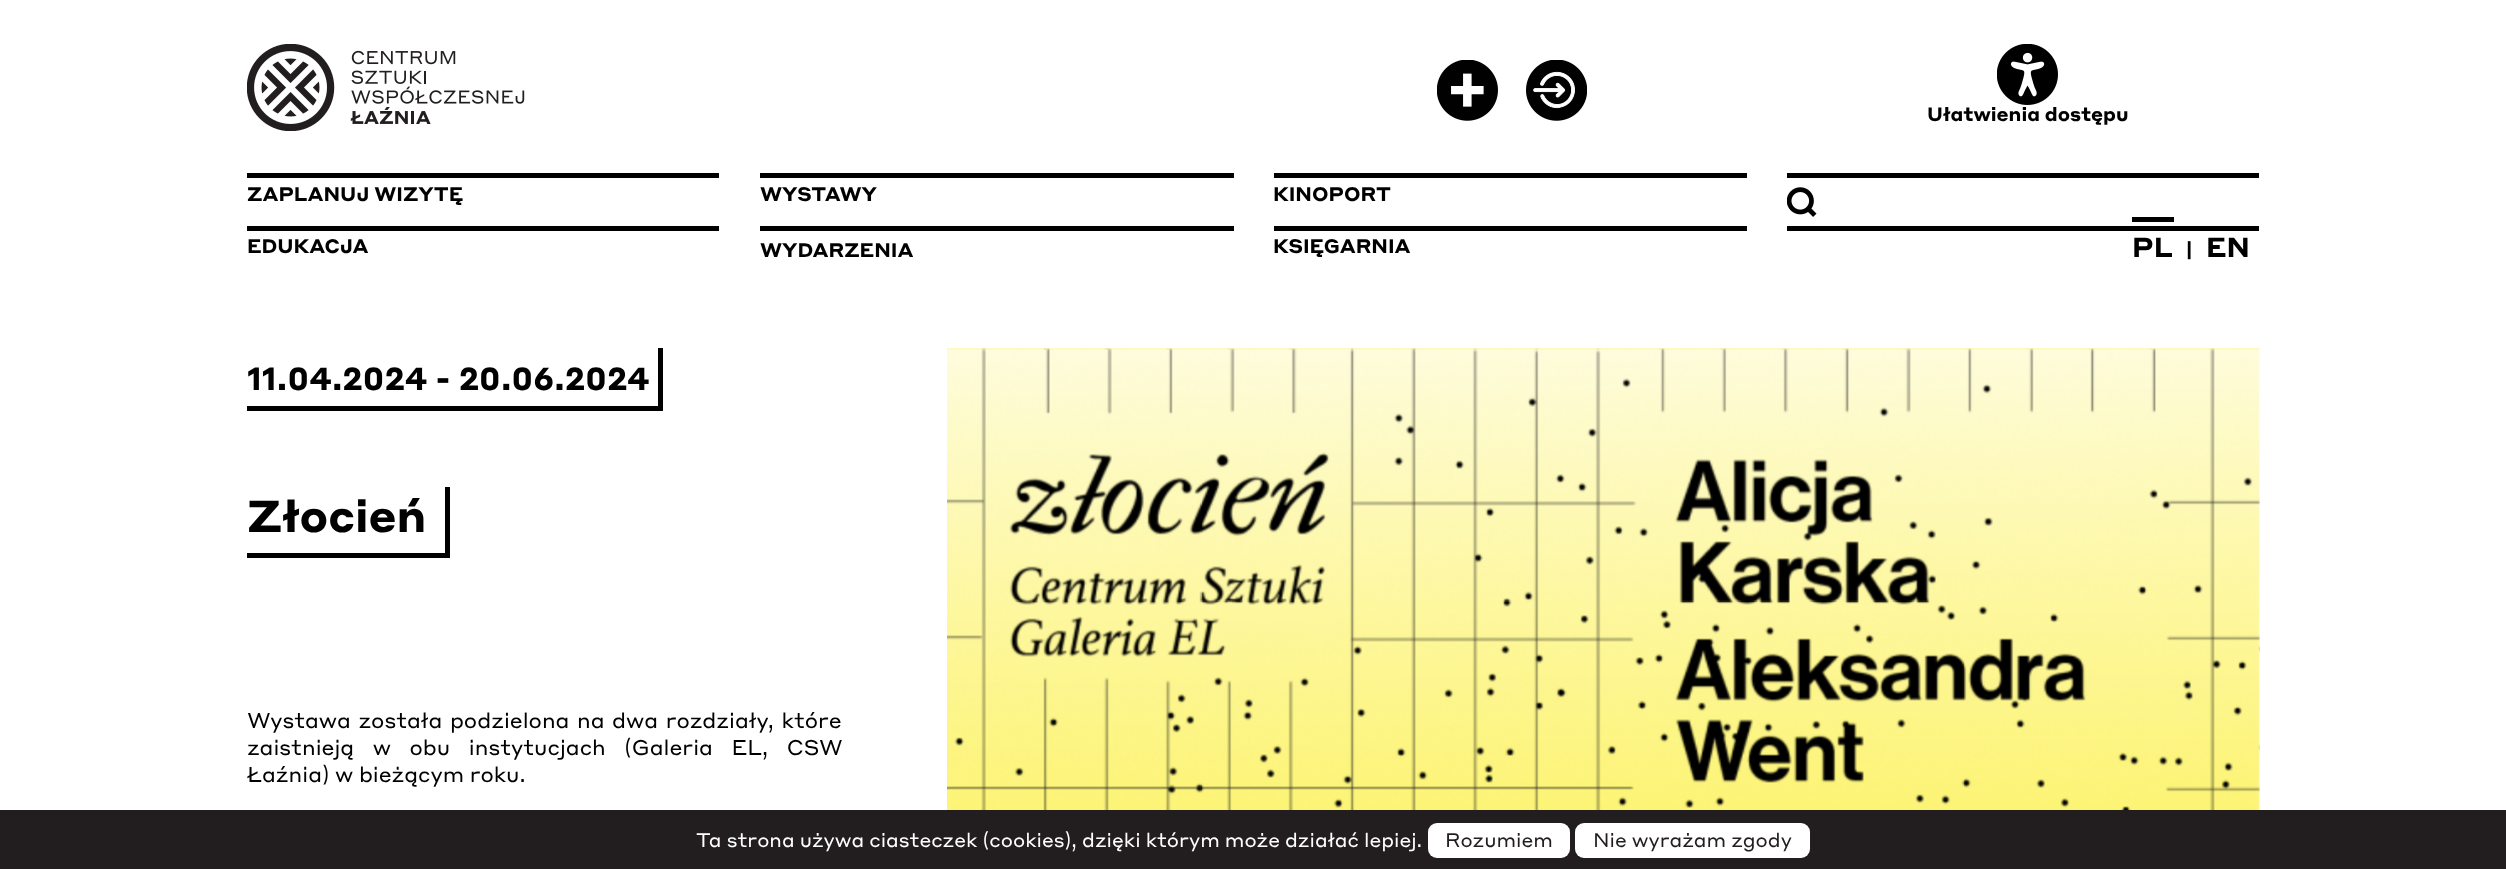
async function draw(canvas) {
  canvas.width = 2506;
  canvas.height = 869;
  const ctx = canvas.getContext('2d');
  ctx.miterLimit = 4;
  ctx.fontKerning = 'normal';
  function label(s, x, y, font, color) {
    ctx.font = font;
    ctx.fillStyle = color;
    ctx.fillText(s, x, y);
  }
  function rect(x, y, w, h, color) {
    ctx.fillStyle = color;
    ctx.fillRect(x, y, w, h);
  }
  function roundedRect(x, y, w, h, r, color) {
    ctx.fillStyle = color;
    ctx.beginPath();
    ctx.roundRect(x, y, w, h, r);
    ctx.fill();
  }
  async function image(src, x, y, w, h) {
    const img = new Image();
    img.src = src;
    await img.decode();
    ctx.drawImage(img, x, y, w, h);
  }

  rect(0, 0, 2506, 869, '#fff');
  await image('assets/img1.png', 247, 44, 278, 87);
  await image('assets/img2.png', 1437, 60, 61, 61);
  await image('assets/img3.png', 1526, 60, 61, 61);
  await image('assets/img4.png', 1997, 44, 61, 61);
  label('Ułatwienia dostępu', 1927, 121, 'bold 18.9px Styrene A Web', '#000');
  rect(247, 173, 472, 5, '#000');
  label('ZAPLANUJ WIZYTĘ', 247, 201, 'bold 19.25px Styrene A Web', '#000');
  rect(760, 173, 474, 5, '#000');
  label('WYSTAWY', 760, 201, 'bold 19.25px Styrene A Web', '#000');
  rect(1274, 173, 473, 5, '#000');
  label('KINOPORT', 1273, 201, 'bold 19.25px Styrene A Web', '#000');
  rect(1787, 173, 472, 5, '#000');
  await image('assets/img5.png', 1787, 187, 30, 30);
  rect(247, 226, 472, 5, '#000');
  label('EDUKACJA', 247, 253, 'bold 19.25px Styrene A Web', '#000');
  rect(760, 226, 474, 5, '#000');
  label('WYDARZENIA', 760, 257, 'bold 19.25px Styrene A Web', '#000');
  rect(1274, 226, 473, 5, '#000');
  label('KSIĘGARNIA', 1273, 253, 'bold 19.25px Styrene A Web', '#000');
  rect(1787, 226, 472, 5, '#000');
  label('PL', 2132, 257, 'bold 27px Styrene A Web', '#000');
  rect(2132, 217, 42, 5, '#000');
  label('|', 2186, 257, 'bold 19.25px Styrene A Web', '#000');
  label('EN', 2206, 257, 'bold 27px Styrene A Web', '#000');
  rect(658, 348, 5, 63, '#000');
  rect(247, 406, 416, 5, '#000');
  label('11.04.2024 - 20.06.2024', 247, 390, 'bold 31.5px Styrene A Web', '#000');
  rect(445, 487, 5, 71, '#000');
  rect(247, 553, 203, 5, '#000');
  label('Złocień', 247, 532, 'bold 44px Styrene A Web', '#000');
  ctx.wordSpacing = '2px';
  label('Wystawa została podzielona na dwa rozdziały, które', 247, 728, '21px Styrene A Web', '#000');
  ctx.wordSpacing = '13px';
  label('zaistnieją w obu instytucjach (Galeria EL, CSW', 247, 755, '21px Styrene A Web', '#000');
  ctx.wordSpacing = '0px';
  label('Łaźnia) w bieżącym roku.', 247, 782, '21px Styrene A Web', '#000');
  await image('assets/img6.png', 947, 348, 1313, 462);
  rect(0, 810, 2506, 59, '#221e20');
  label('Ta strona używa ciasteczek (cookies), dzięki którym może działać lepiej.', 696, 847, '19.25px Styrene A Web', '#fff');
  roundedRect(1428, 823, 142, 35, 9, '#fff');
  label('Rozumiem', 1445, 847, '19.25px Styrene A Web', '#221e20');
  roundedRect(1575, 823, 235, 35, 9, '#fff');
  label('Nie wyrażam zgody', 1593, 847, '19.25px Styrene A Web', '#221e20');
}

draw(document.querySelector('canvas'));
